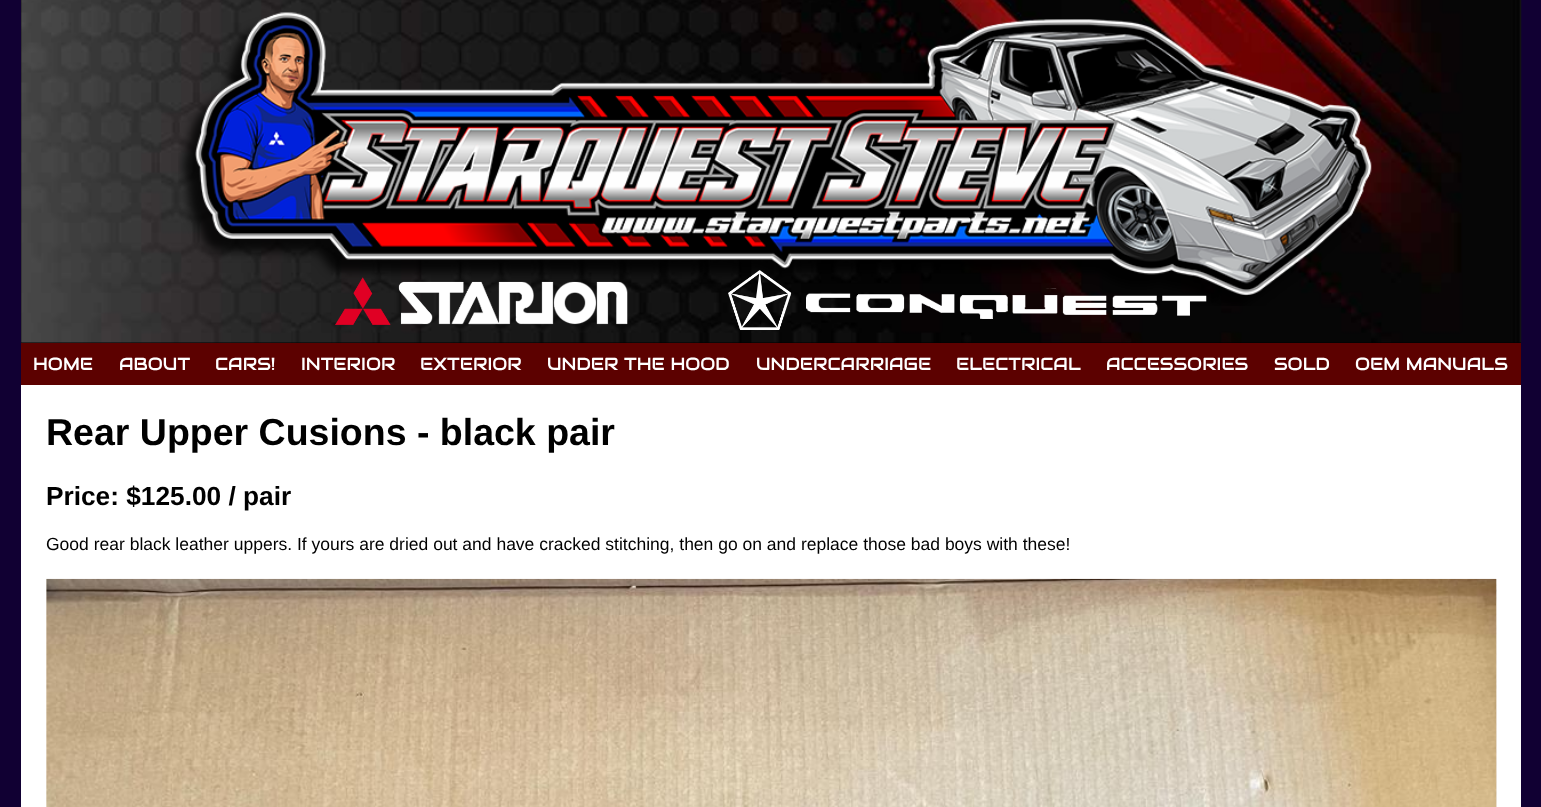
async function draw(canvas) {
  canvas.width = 1541;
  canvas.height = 807;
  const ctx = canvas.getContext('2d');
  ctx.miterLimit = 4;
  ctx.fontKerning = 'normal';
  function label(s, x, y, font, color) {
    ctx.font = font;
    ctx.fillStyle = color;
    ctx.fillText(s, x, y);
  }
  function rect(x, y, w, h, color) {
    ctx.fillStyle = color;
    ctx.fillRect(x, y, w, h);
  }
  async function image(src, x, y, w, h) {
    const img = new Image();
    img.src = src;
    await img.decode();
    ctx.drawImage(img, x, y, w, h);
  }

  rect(0, 0, 1541, 807, '#103');
  rect(21, 0, 1500, 343, '#000');
  await image('assets/img1.png', 21, 0, 1501, 343);
  await image('assets/img2.png', 178, 12, 1194, 294);
  await image('assets/img3.png', 335, 277, 293, 48);
  await image('assets/img4.png', 728, 270, 479, 60);
  rect(21, 343, 1500, 42, '#5c0100');
  label('HOME', 33, 370, '17.5px Audiowide', '#fff');
  label('ABOUT', 119, 370, '17.5px Audiowide', '#fff');
  label('CARS!', 215, 370, '17.5px Audiowide', '#fff');
  label('INTERIOR', 301, 370, '17.5px Audiowide', '#fff');
  label('EXTERIOR', 420, 370, '17.5px Audiowide', '#fff');
  label('UNDER THE HOOD', 547, 370, '17.5px Audiowide', '#fff');
  label('UNDERCARRIAGE', 756, 370, '17.5px Audiowide', '#fff');
  label('ELECTRICAL', 956, 370, '17.5px Audiowide', '#fff');
  label('ACCESSORIES', 1106, 370, '17.5px Audiowide', '#fff');
  label('SOLD', 1274, 370, '17.5px Audiowide', '#fff');
  label('OEM MANUALS', 1355, 370, '17.5px Audiowide', '#fff');
  rect(21, 385, 1500, 422, '#fff');
  label('Rear Upper Cusions - black pair', 46, 445, 'bold 37.5px Liberation Sans', '#000');
  label('Price: $125.00 / pair', 46, 505, 'bold 26.25px Liberation Sans', '#000');
  label('Good rear black leather uppers. If yours are dried out and have cracked stitching, then go on and replace those bad boys with these!', 46, 550, '17.5px Liberation Sans', '#000');
  await image('assets/img6.png', 46, 579, 1, 228);
  await image('assets/img7.png', 1496, 579, 1, 228);
  await image('assets/img8.png', 1496, 579, 1, 228);
  await image('assets/img5.png', 46, 578, 1451, 229);
}

draw(document.querySelector('canvas'));
